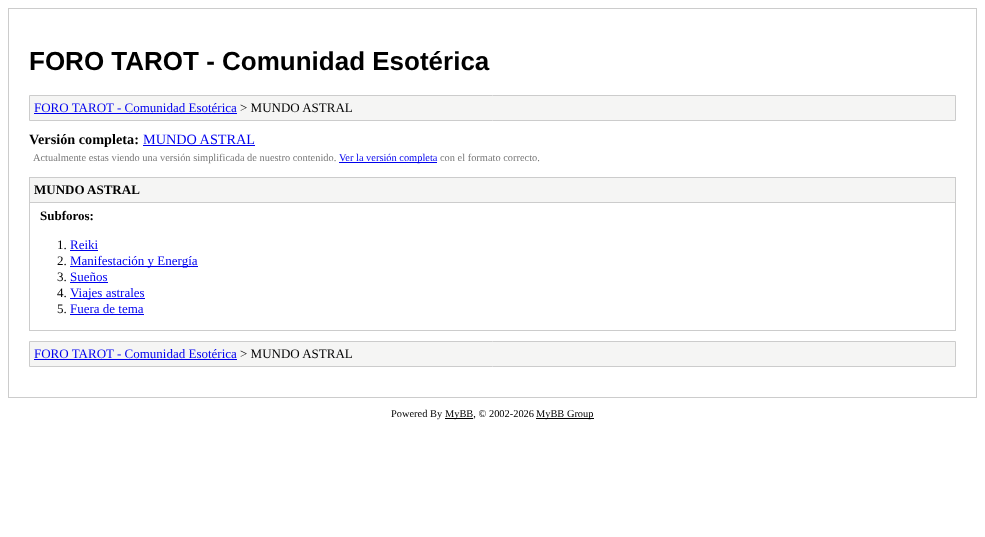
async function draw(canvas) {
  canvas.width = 985;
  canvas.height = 537;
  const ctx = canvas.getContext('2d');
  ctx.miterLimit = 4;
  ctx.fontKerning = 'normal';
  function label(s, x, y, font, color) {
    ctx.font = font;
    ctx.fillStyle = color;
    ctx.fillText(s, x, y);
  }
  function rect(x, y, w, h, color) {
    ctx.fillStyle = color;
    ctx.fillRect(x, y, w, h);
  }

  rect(0, 0, 985, 537, '#fff');
  ctx.strokeStyle = '#ccc';
  ctx.strokeRect(8.5, 8.5, 968, 389);
  label('FORO TAROT - Comunidad Esotérica', 29, 70, 'bold 26px Liberation Sans', '#000');
  ctx.fillStyle = '#f5f5f4';
  ctx.beginPath();
  ctx.rect(29.5, 95.5, 926, 25);
  ctx.fill();
  ctx.stroke();
  label('FORO TAROT - Comunidad Esotérica', 34, 112, '13px Liberation Serif', '#00e');
  rect(34, 113, 203, 1, '#00e');
  label('> MUNDO ASTRAL', 240, 112, '13px Liberation Serif', '#000');
  label('Versión completa:', 29, 144, 'bold 14.25px Liberation Serif', '#000');
  label('MUNDO ASTRAL', 143, 144, '14.25px Liberation Serif', '#00e');
  rect(143, 145, 112, 1, '#00e');
  label('Actualmente estas viendo una versión simplificada de nuestro contenido.', 33, 161, '10.4px Liberation Serif', '#777');
  rect(339, 162, 98, 1, '#00e');
  label('Ver la versión completa', 339, 161, '10.4px Liberation Serif', '#00e');
  label('con el formato correcto.', 440, 161, '10.4px Liberation Serif', '#777');
  ctx.strokeRect(29.5, 177.5, 926, 153);
  rect(30, 178, 925, 24, '#f5f5f4');
  rect(30, 202, 925, 1, '#ccc');
  label('MUNDO ASTRAL', 34, 194, 'bold 13px Liberation Serif', '#000');
  label('Subforos:', 40, 220, 'bold 13px Liberation Serif', '#000');
  label('1.', 57, 249, '13px Liberation Serif', '#000');
  label('Reiki', 70, 249, '13px Liberation Serif', '#00e');
  rect(70, 250, 28, 1, '#00e');
  label('2.', 57, 265, '13px Liberation Serif', '#000');
  rect(70, 266, 128, 1, '#00e');
  label('Manifestación y Energía', 70, 265, '13px Liberation Serif', '#00e');
  label('3.', 57, 281, '13px Liberation Serif', '#000');
  label('Sueños', 70, 281, '13px Liberation Serif', '#00e');
  rect(70, 282, 38, 1, '#00e');
  label('4.', 57, 297, '13px Liberation Serif', '#000');
  rect(70, 298, 75, 1, '#00e');
  label('Viajes astrales', 70, 297, '13px Liberation Serif', '#00e');
  label('5.', 57, 313, '13px Liberation Serif', '#000');
  label('Fuera de tema', 70, 313, '13px Liberation Serif', '#00e');
  rect(70, 314, 74, 1, '#00e');
  ctx.fillStyle = '#f5f5f4';
  ctx.beginPath();
  ctx.rect(29.5, 341.5, 926, 25);
  ctx.fill();
  ctx.stroke();
  label('FORO TAROT - Comunidad Esotérica', 34, 358, '13px Liberation Serif', '#00e');
  rect(34, 359, 203, 1, '#00e');
  label('> MUNDO ASTRAL', 240, 358, '13px Liberation Serif', '#000');
  label('Powered By', 391, 417, '10.4px Liberation Serif', '#000');
  rect(445, 418, 28, 1, '#000');
  label('MyBB, © 2002-2026', 445, 417, '10.4px Liberation Serif', '#000');
  rect(536, 418, 58, 1, '#000');
  label('MyBB Group', 536, 417, '10.4px Liberation Serif', '#000');
}

draw(document.querySelector('canvas'));
